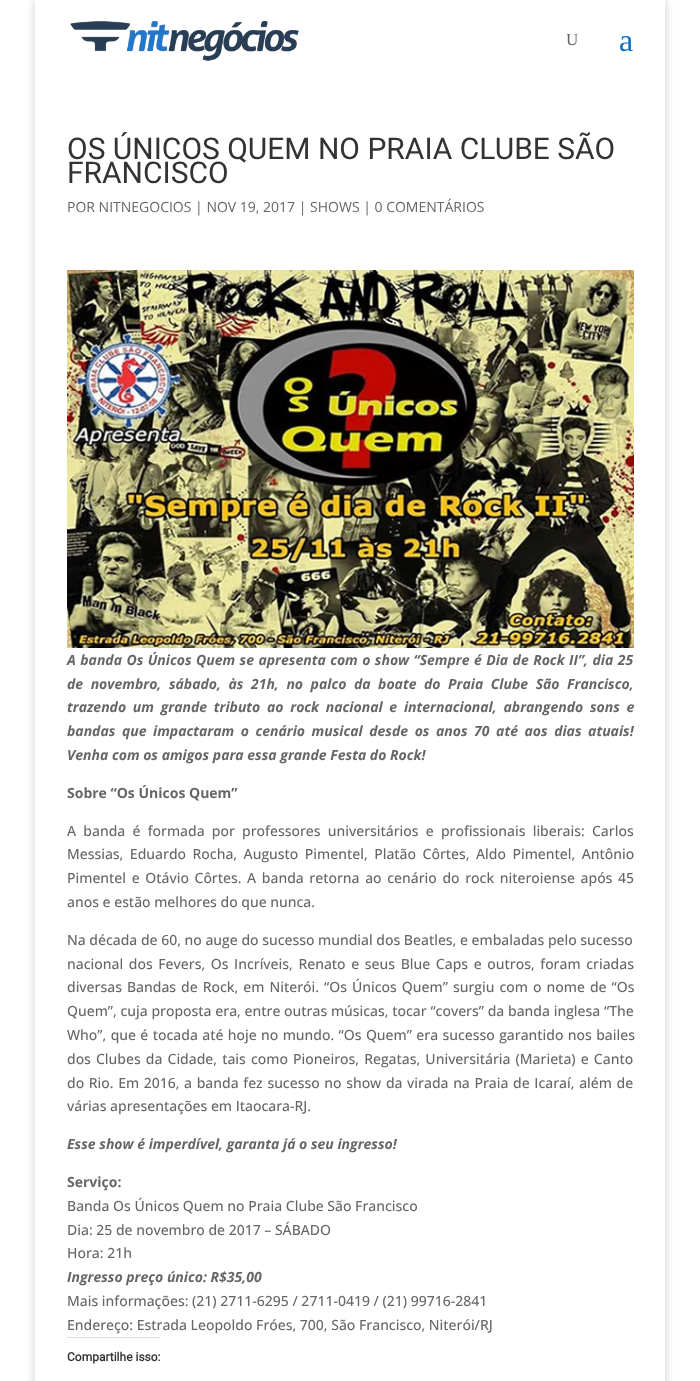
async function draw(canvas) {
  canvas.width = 700;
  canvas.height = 1381;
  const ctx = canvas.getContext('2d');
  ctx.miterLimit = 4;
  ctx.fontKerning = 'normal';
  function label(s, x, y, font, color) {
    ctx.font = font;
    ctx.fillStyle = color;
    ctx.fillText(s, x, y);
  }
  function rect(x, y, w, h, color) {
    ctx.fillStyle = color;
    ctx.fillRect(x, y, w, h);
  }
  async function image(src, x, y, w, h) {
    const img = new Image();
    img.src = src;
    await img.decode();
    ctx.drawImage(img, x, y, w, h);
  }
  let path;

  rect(0, 0, 700, 1381, '#fff');
  ctx.save();
  path = new Path2D('M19 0H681V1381H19ZM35 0H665V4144H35Z');
  ctx.clip(path, 'evenodd');
  ctx.fillStyle = '#00000033';
  ctx.filter = 'blur(5px)';
  ctx.beginPath();
  ctx.rect(35, 0, 630, 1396);
  ctx.fill();
  ctx.filter = 'none';
  ctx.restore();
  await image('assets/img1.png', 70, 21, 229, 40);
  label('U', 566, 45, '17px Liberation Serif', '#666');
  label('a', 619, 51, '32px Liberation Serif', '#0c71c3');
  label('OS ÚNICOS QUEM NO PRAIA CLUBE SÃO', 67, 159, '30px Roboto', '#333');
  label('FRANCISCO', 67, 183, '30px Roboto', '#333');
  label('POR NITNEGOCIOS | NOV 19, 2017 | SHOWS | 0 COMENTÁRIOS', 67, 212, '14px Open Sans', '#666');
  await image('assets/img2.png', 67, 270, 567, 378);
  ctx.wordSpacing = '0.8px';
  label('A banda Os Únicos Quem se apresenta com o show “Sempre é Dia de Rock II”, dia 25', 67, 665, 'italic bold 14px Open Sans', '#666');
  ctx.wordSpacing = '3.9px';
  label('de novembro, sábado, às 21h, no palco da boate do Praia Clube São Francisco,', 67, 689, 'italic bold 14px Open Sans', '#666');
  ctx.wordSpacing = '3.1px';
  label('trazendo um grande tributo ao rock nacional e internacional, abrangendo sons e', 67, 712, 'italic bold 14px Open Sans', '#666');
  ctx.wordSpacing = '2.9px';
  label('bandas que impactaram o cenário musical desde os anos 70 até aos dias atuais!', 67, 736, 'italic bold 14px Open Sans', '#666');
  ctx.wordSpacing = '0px';
  label('Venha com os amigos para essa grande Festa do Rock!', 67, 760, 'italic bold 14px Open Sans', '#666');
  label('Sobre “Os Únicos Quem”', 67, 798, 'bold 14px Open Sans', '#666');
  ctx.wordSpacing = '3.6px';
  label('A banda é formada por professores universitários e profissionais liberais: Carlos', 67, 836, '500 14px Open Sans', '#666');
  ctx.wordSpacing = '2.9px';
  label('Messias, Eduardo Rocha, Augusto Pimentel, Platão Côrtes, Aldo Pimentel, Antônio', 67, 859, '500 14px Open Sans', '#666');
  ctx.wordSpacing = '2px';
  label('Pimentel e Otávio Côrtes. A banda retorna ao cenário do rock niteroiense após 45', 67, 883, '500 14px Open Sans', '#666');
  ctx.wordSpacing = '0px';
  label('anos e estão melhores do que nunca.', 67, 907, '500 14px Open Sans', '#666');
  label('Na década de 60, no auge do sucesso mundial dos Beatles, e embaladas pelo sucesso', 67, 945, '500 14px Open Sans', '#666');
  ctx.wordSpacing = '2px';
  label('nacional dos Fevers, Os Incríveis, Renato e seus Blue Caps e outros, foram criadas', 67, 969, '500 14px Open Sans', '#666');
  ctx.wordSpacing = '1.4px';
  label('diversas Bandas de Rock, em Niterói. “Os Únicos Quem” surgiu com o nome de “Os', 67, 992, '500 14px Open Sans', '#666');
  ctx.wordSpacing = '0.1px';
  label('Quem”, cuja proposta era, entre outras músicas, tocar “covers” da banda inglesa “The', 67, 1016, '500 14px Open Sans', '#666');
  ctx.wordSpacing = '0.75px';
  label('Who”, que é tocada até hoje no mundo. “Os Quem” era sucesso garantido nos bailes', 67, 1040, '500 14px Open Sans', '#666');
  ctx.wordSpacing = '1.5px';
  label('dos Clubes da Cidade, tais como Pioneiros, Regatas, Universitária (Marieta) e Canto', 67, 1064, '500 14px Open Sans', '#666');
  ctx.wordSpacing = '1px';
  label('do Rio. Em 2016, a banda fez sucesso no show da virada na Praia de Icaraí, além de', 67, 1088, '500 14px Open Sans', '#666');
  ctx.wordSpacing = '0px';
  label('várias apresentações em Itaocara-RJ.', 67, 1111, '500 14px Open Sans', '#666');
  label('Esse show é imperdível, garanta já o seu ingresso!', 67, 1149, 'italic bold 14px Open Sans', '#666');
  label('Serviço:', 67, 1187, 'bold 14px Open Sans', '#666');
  label('Banda Os Únicos Quem no Praia Clube São Francisco', 67, 1211, '500 14px Open Sans', '#666');
  label('Dia: 25 de novembro de 2017 – SÁBADO', 67, 1235, '500 14px Open Sans', '#666');
  label('Hora: 21h', 67, 1258, '500 14px Open Sans', '#666');
  label('Ingresso preço único: R$35,00', 67, 1282, 'italic bold 14px Open Sans', '#666');
  label('Mais informações: (21) 2711-6295 / 2711-0419 / (21) 99716-2841', 67, 1306, '500 14px Open Sans', '#666');
  label('Endereço: Estrada Leopoldo Fróes, 700, São Francisco, Niterói/RJ', 67, 1330, '500 14px Open Sans', '#666');
  rect(67, 1337, 93, 1, '#dcdcde');
  label('Compartilhe isso:', 67, 1361, 'bold 12px Roboto', '#333');
}

draw(document.querySelector('canvas'));
